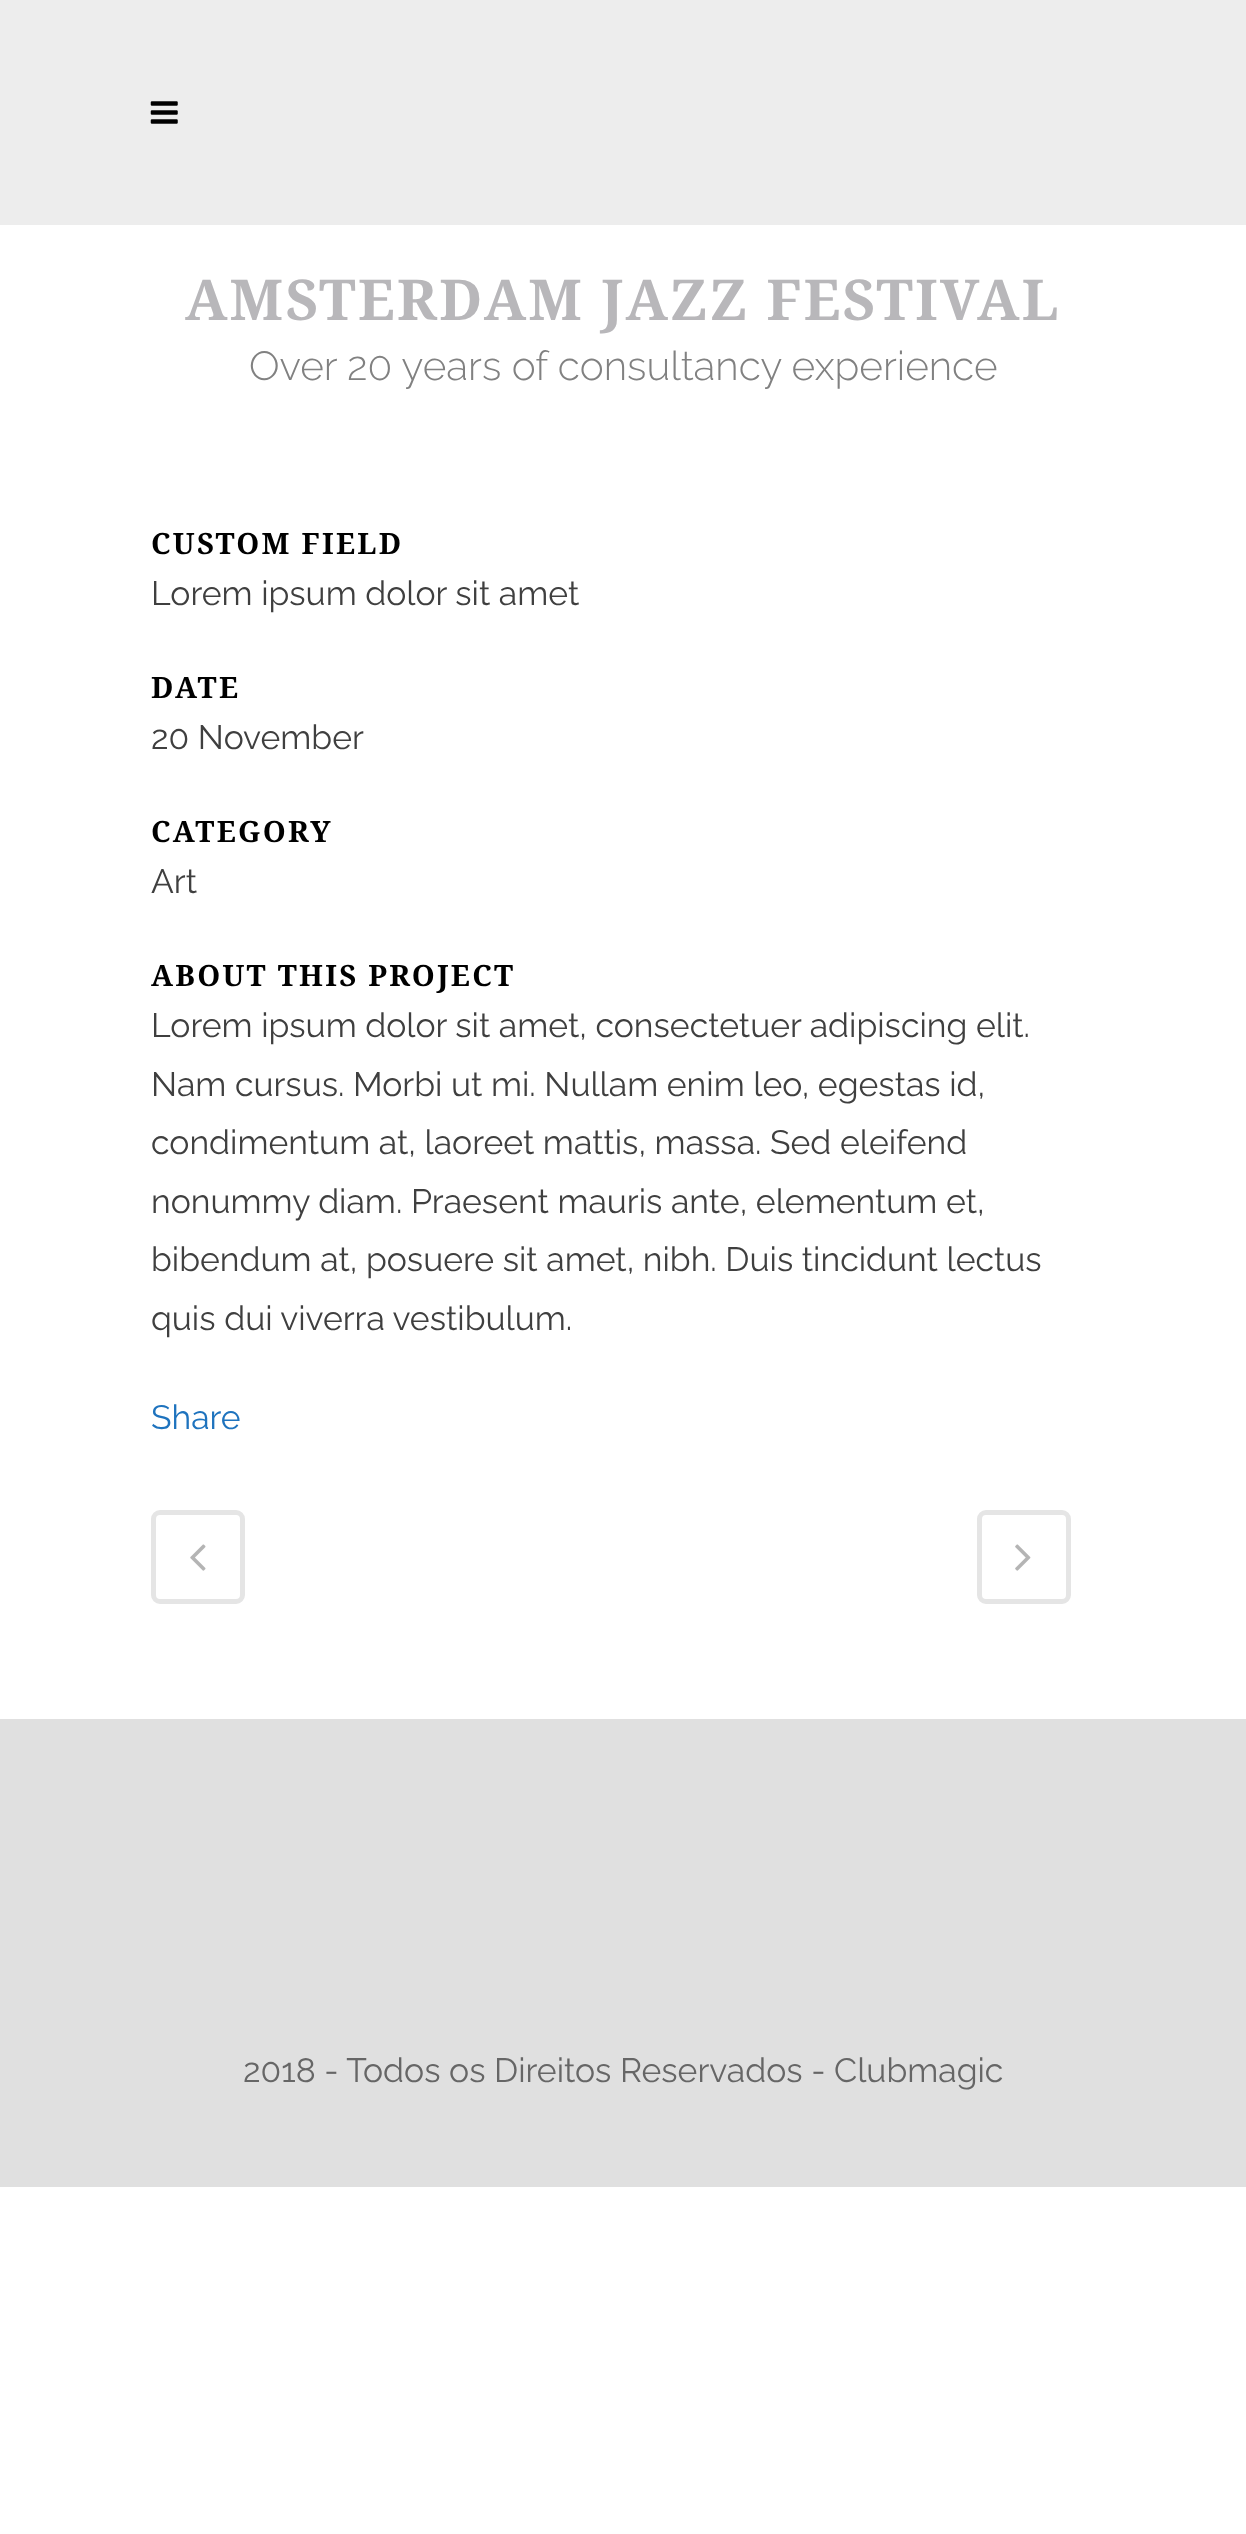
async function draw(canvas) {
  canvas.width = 1246;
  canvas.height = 2534;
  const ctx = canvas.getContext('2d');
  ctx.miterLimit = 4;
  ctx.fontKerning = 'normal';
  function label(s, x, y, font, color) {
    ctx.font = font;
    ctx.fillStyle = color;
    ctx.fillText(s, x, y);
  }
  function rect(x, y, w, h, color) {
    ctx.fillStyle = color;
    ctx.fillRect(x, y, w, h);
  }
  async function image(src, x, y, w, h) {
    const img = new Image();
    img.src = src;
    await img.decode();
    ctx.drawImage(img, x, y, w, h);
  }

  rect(0, 0, 1246, 2534, '#fff');
  rect(0, 0, 1246, 225, '#ededed');
  await image('assets/img1.png', 150, 101, 28, 23);
  ctx.letterSpacing = '2.25px';
  label('AMSTERDAM JAZZ FESTIVAL', 185, 320, 'bold 56.25px Noto Serif', '#b8b7ba');
  ctx.letterSpacing = '0px';
  label('Over 20 years of consultancy experience', 249, 380, '300 40.5px Raleway', '#818181');
  ctx.letterSpacing = '2.25px';
  label('CUSTOM FIELD', 151, 554, 'bold 29.25px Noto Serif', '#000');
  ctx.letterSpacing = '0px';
  label('Lorem ipsum dolor sit amet', 151, 605, '33.75px Raleway', '#3f3f3f');
  ctx.letterSpacing = '2.25px';
  label('DATE', 151, 698, 'bold 29.25px Noto Serif', '#000');
  ctx.letterSpacing = '0px';
  label('20 November', 151, 749, '33.75px Raleway', '#3f3f3f');
  ctx.letterSpacing = '2.25px';
  label('CATEGORY', 151, 842, 'bold 29.25px Noto Serif', '#000');
  ctx.letterSpacing = '0px';
  label('Art', 151, 893, '33.75px Raleway', '#3f3f3f');
  ctx.letterSpacing = '2.25px';
  label('ABOUT THIS PROJECT', 151, 986, 'bold 29.25px Noto Serif', '#000');
  ctx.letterSpacing = '0px';
  label('Lorem ipsum dolor sit amet, consectetuer adipiscing elit.', 151, 1037, '33.75px Raleway', '#3f3f3f');
  label('Nam cursus. Morbi ut mi. Nullam enim leo, egestas id,', 151, 1096, '33.75px Raleway', '#3f3f3f');
  label('condimentum at, laoreet mattis, massa. Sed eleifend', 151, 1154, '33.75px Raleway', '#3f3f3f');
  label('nonummy diam. Praesent mauris ante, elementum et,', 151, 1213, '33.75px Raleway', '#3f3f3f');
  label('bibendum at, posuere sit amet, nibh. Duis tincidunt lectus', 151, 1271, '33.75px Raleway', '#3f3f3f');
  label('quis dui viverra vestibulum.', 151, 1330, '33.75px Raleway', '#3f3f3f');
  label('Share', 151, 1429, '33.75px Raleway', '#1e73be');
  ctx.beginPath();
  ctx.roundRect(153.5, 1512.5, 89, 89, 6.5);
  ctx.strokeStyle = '#e5e5e5';
  ctx.lineWidth = 5;
  ctx.stroke();
  await image('assets/img2.png', 190, 1544, 16, 27);
  ctx.beginPath();
  ctx.roundRect(979.5, 1512.5, 89, 89, 6.5);
  ctx.stroke();
  await image('assets/img3.png', 1015, 1544, 16, 27);
  rect(0, 1719, 1246, 468, '#e0e0e0');
  label('2018 - Todos os Direitos Reservados - Clubmagic', 243, 2082, '33.75px Raleway', '#666');
}

draw(document.querySelector('canvas'));
